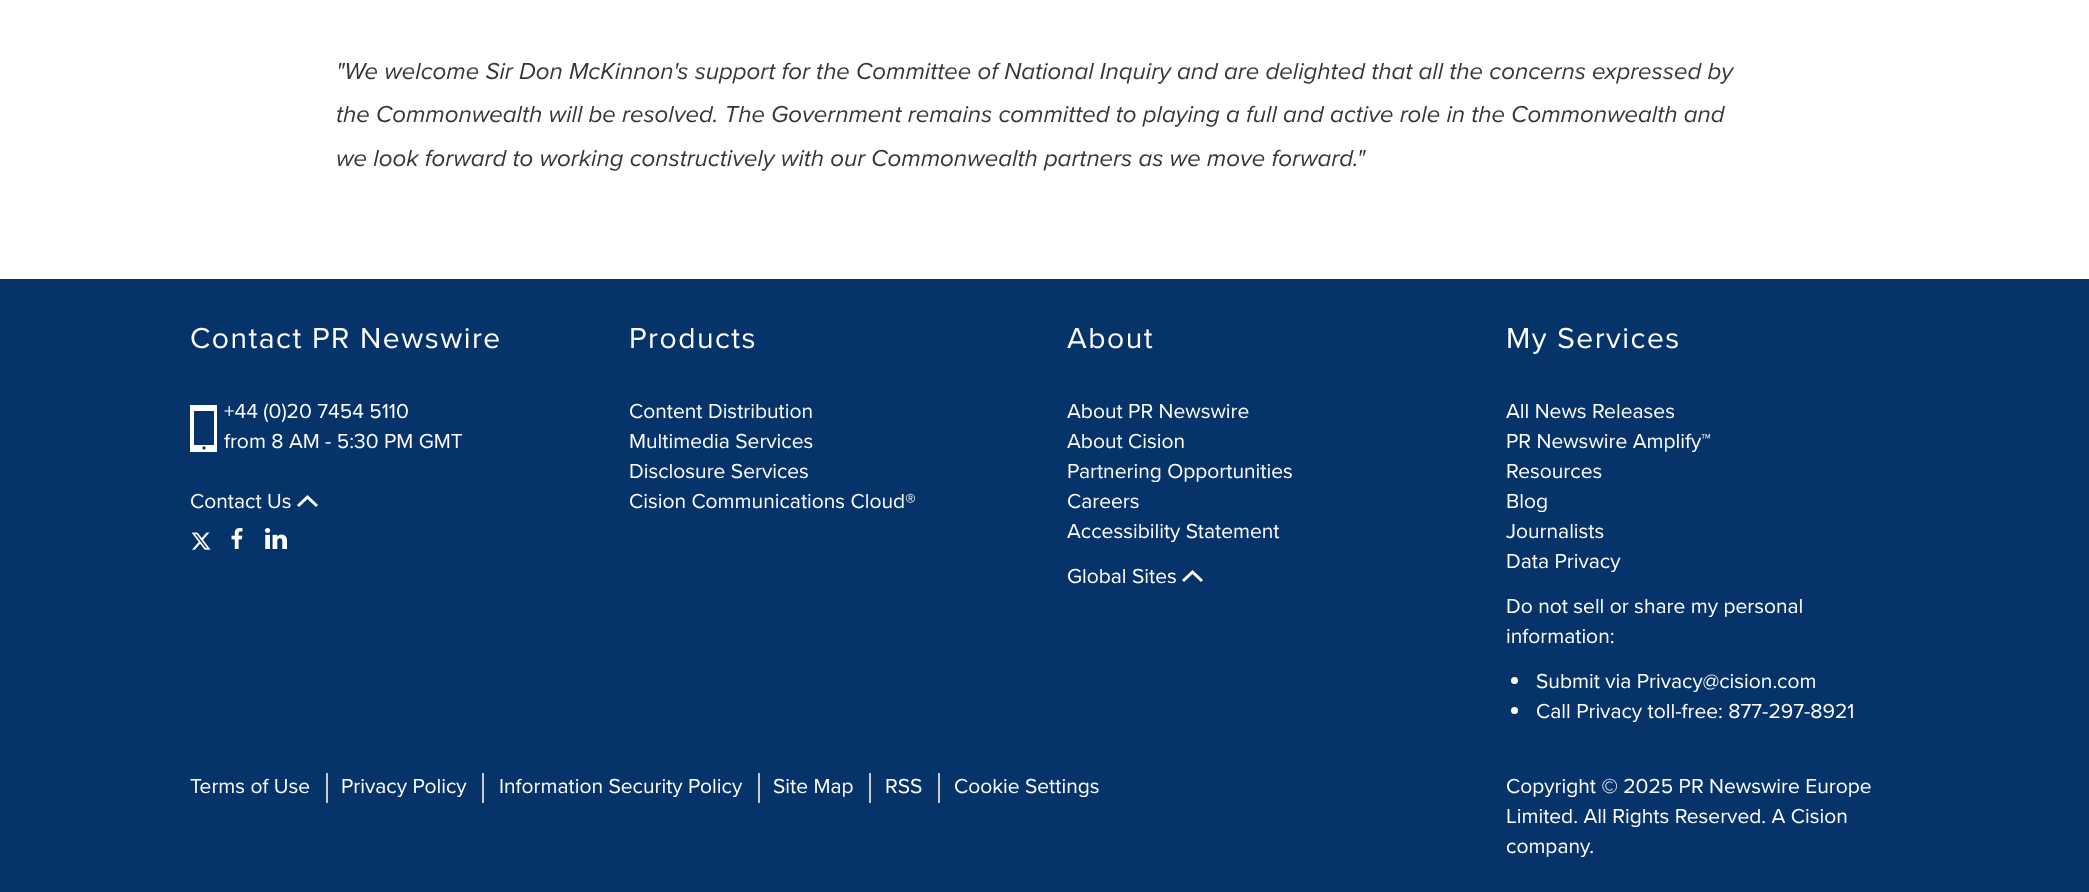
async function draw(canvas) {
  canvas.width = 2089;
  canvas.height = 892;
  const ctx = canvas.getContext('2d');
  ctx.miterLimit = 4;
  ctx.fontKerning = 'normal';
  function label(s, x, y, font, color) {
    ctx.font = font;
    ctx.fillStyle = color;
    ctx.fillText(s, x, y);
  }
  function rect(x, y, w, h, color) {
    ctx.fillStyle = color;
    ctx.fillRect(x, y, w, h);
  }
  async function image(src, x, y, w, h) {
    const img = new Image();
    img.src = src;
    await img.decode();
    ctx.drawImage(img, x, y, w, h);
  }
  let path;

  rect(0, 0, 2089, 892, '#fff');
  label('"We welcome Sir Don McKinnon\'s support for the Committee of National Inquiry and are delighted that all the concerns expressed by', 336, 79, 'italic 24px Proxima Nova', '#373737');
  label('the Commonwealth will be resolved. The Government remains committed to playing a full and active role in the Commonwealth and', 336, 122, 'italic 24px Proxima Nova', '#373737');
  label('we look forward to working constructively with our Commonwealth partners as we move forward."', 336, 166, 'italic 24px Proxima Nova', '#373737');
  rect(0, 279, 2089, 613, '#063369');
  ctx.letterSpacing = '1.5px';
  label('Contact PR Newswire', 190, 348, '30px Proxima Nova', '#fff');
  path = new Path2D('M190 405H217V452H190ZM203 449C204 451 207 448 205 447C204 445 201 448 203 449ZM214 445V411H194V445Z');
  ctx.fill(path);
  ctx.letterSpacing = '0px';
  label('+44 (0)20 7454 5110', 224, 418, '21px Proxima Nova', '#fff');
  label('from 8 AM - 5:30 PM GMT', 224, 448, '21px Proxima Nova', '#fff');
  label('Contact Us', 190, 508, '21px Proxima Nova', '#fff');
  path = new Path2D('M307.5 495L318 505L316 507L307.5 499L299 507L297 505Z');
  ctx.fill(path);
  await image('assets/img1.png', 191, 532, 20, 18);
  await image('assets/img2.png', 231, 528, 12, 21);
  await image('assets/img3.png', 265, 528, 22, 21);
  ctx.letterSpacing = '1.5px';
  label('Products', 629, 348, '30px Proxima Nova', '#fff');
  ctx.letterSpacing = '0px';
  label('Content Distribution', 629, 418, '21px Proxima Nova', '#fff');
  label('Multimedia Services', 629, 448, '21px Proxima Nova', '#fff');
  label('Disclosure Services', 629, 478, '21px Proxima Nova', '#fff');
  label('Cision Communications Cloud®', 629, 508, '21px Proxima Nova', '#fff');
  ctx.letterSpacing = '1.5px';
  label('About', 1067, 348, '30px Proxima Nova', '#fff');
  ctx.letterSpacing = '0px';
  label('About PR Newswire', 1067, 418, '21px Proxima Nova', '#fff');
  label('About Cision', 1067, 448, '21px Proxima Nova', '#fff');
  label('Partnering Opportunities', 1067, 478, '21px Proxima Nova', '#fff');
  label('Careers', 1067, 508, '21px Proxima Nova', '#fff');
  label('Accessibility Statement', 1067, 538, '21px Proxima Nova', '#fff');
  label('Global Sites', 1067, 583, '21px Proxima Nova', '#fff');
  path = new Path2D('M1192.5 570L1203 580L1201 582L1192.5 574L1184 582L1182 580Z');
  ctx.fill(path);
  ctx.letterSpacing = '1.5px';
  label('My Services', 1506, 348, '30px Proxima Nova', '#fff');
  ctx.letterSpacing = '0px';
  label('All News Releases', 1506, 418, '21px Proxima Nova', '#fff');
  label('PR Newswire Amplify™', 1506, 448, '21px Proxima Nova', '#fff');
  label('Resources', 1506, 478, '21px Proxima Nova', '#fff');
  label('Blog', 1506, 508, '21px Proxima Nova', '#fff');
  label('Journalists', 1506, 538, '21px Proxima Nova', '#fff');
  label('Data Privacy', 1506, 568, '21px Proxima Nova', '#fff');
  label('Do not sell or share my personal', 1506, 613, '21px Proxima Nova', '#fff');
  label('information:', 1506, 643, '21px Proxima Nova', '#fff');
  ctx.beginPath();
  ctx.arc(1514.5, 680.5, 3.5, 0, 2 * Math.PI);
  ctx.fill();
  label('Submit via Privacy@cision.com', 1536, 688, '21px Proxima Nova', '#fff');
  ctx.beginPath();
  ctx.arc(1514.5, 710.5, 3.5, 0, 2 * Math.PI);
  ctx.fill();
  label('Call Privacy toll-free: 877-297-8921', 1536, 718, '21px Proxima Nova', '#fff');
  rect(326, 773, 2, 30, '#cac8c8');
  label('Terms of Use', 190, 793, '21px Proxima Nova', '#fff');
  rect(482, 773, 2, 30, '#cac8c8');
  label('Privacy Policy', 341, 793, '21px Proxima Nova', '#fff');
  rect(758, 773, 2, 30, '#cac8c8');
  label('Information Security Policy', 499, 793, '21px Proxima Nova', '#fff');
  rect(869, 773, 2, 30, '#cac8c8');
  label('Site Map', 773, 793, '21px Proxima Nova', '#fff');
  rect(938, 773, 2, 30, '#cac8c8');
  label('RSS', 885, 793, '21px Proxima Nova', '#fff');
  label('Cookie Settings', 954, 793, '21px Proxima Nova', '#fff');
  label('Copyright © 2025 PR Newswire Europe', 1506, 793, '21px Proxima Nova', '#fff');
  label('Limited. All Rights Reserved. A Cision', 1506, 823, '21px Proxima Nova', '#fff');
  label('company.', 1506, 853, '21px Proxima Nova', '#fff');
}

draw(document.querySelector('canvas'));
